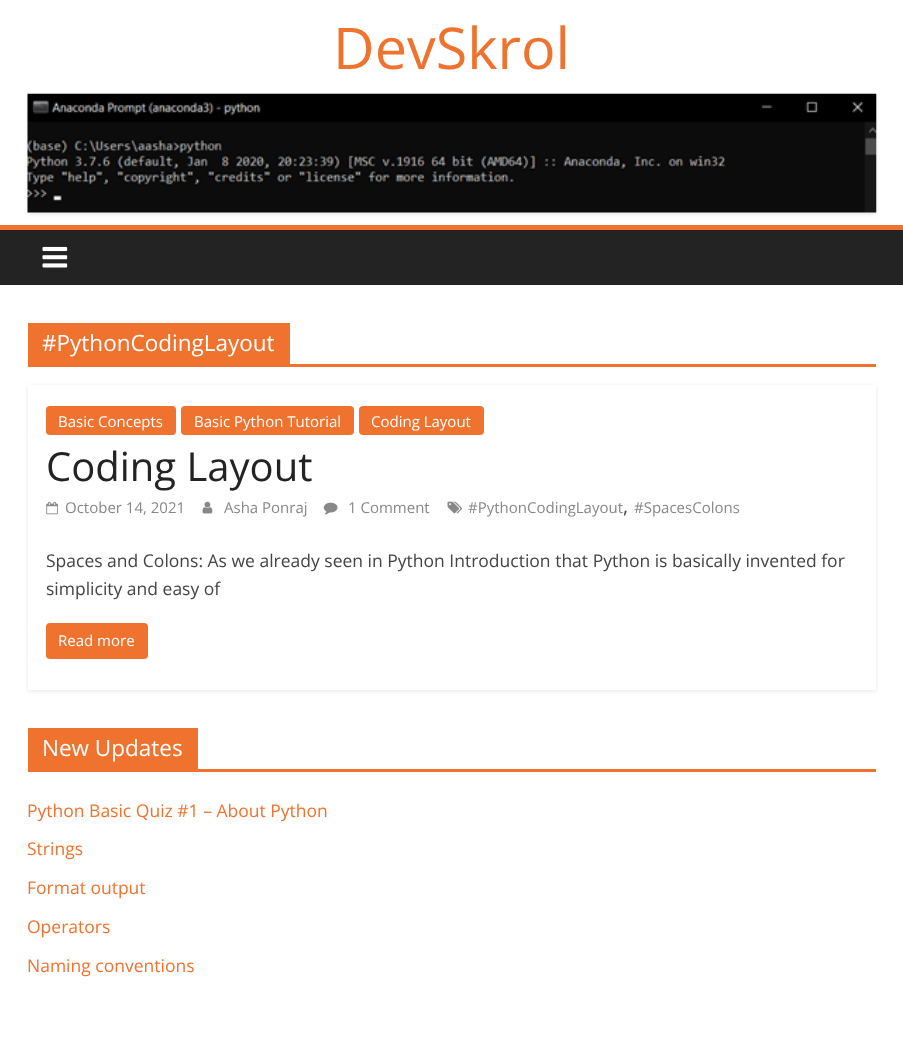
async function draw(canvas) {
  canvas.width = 903;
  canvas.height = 1040;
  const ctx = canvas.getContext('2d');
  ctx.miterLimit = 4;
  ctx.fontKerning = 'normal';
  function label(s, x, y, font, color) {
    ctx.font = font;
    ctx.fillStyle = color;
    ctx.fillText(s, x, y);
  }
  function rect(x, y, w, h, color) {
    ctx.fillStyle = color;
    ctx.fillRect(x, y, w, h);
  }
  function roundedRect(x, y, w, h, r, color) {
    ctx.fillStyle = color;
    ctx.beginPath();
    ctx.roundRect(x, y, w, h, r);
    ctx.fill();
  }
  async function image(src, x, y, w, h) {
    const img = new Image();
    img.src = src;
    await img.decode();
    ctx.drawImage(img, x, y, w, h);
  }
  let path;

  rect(0, 0, 903, 1040, '#fff');
  label('DevSkrol', 333, 69, '57.5px Open Sans', '#ef732f');
  ctx.fillStyle = '#0000001a';
  ctx.filter = 'blur(2px)';
  ctx.beginPath();
  ctx.rect(28, 95, 848, 119);
  ctx.fill();
  ctx.filter = 'none';
  await image('assets/img1.png', 27, 93, 850, 120);
  rect(0, 230, 903, 55, '#232323');
  rect(0, 225, 903, 5, '#ef732f');
  await image('assets/img2.png', 42, 246, 26, 22);
  rect(28, 364, 848, 3, '#ef732f');
  rect(28, 323, 262, 41, '#ef732f');
  label('#PythonCodingLayout', 42, 351, '22.5px Open Sans', '#fff');
  ctx.save();
  path = new Path2D('M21 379H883V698H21ZM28 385H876V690H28Z');
  ctx.clip(path, 'evenodd');
  ctx.fillStyle = '#0000001a';
  ctx.filter = 'blur(2px)';
  ctx.beginPath();
  ctx.rect(28, 386, 848, 305);
  ctx.fill();
  ctx.filter = 'none';
  ctx.restore();
  roundedRect(46, 406, 130, 29, 4, '#ef732f');
  label('Basic Concepts', 58, 427, '15px Open Sans', '#fff');
  roundedRect(181, 406, 173, 29, 4, '#ef732f');
  label('Basic Python Tutorial', 194, 427, '15px Open Sans', '#fff');
  roundedRect(359, 406, 125, 29, 4, '#ef732f');
  label('Coding Layout', 371, 427, '15px Open Sans', '#fff');
  label('Coding Layout', 46, 481, '40px Open Sans', '#232323');
  await image('assets/img3.png', 46, 501, 12, 14);
  label('October 14, 2021', 65, 513, '15px Open Sans', '#888');
  await image('assets/img4.png', 202, 501, 11, 13);
  label('Asha Ponraj', 224, 513, '15px Open Sans', '#888');
  await image('assets/img5.png', 323, 502, 15, 13);
  label('1 Comment', 348, 513, '15px Open Sans', '#888');
  await image('assets/img6.png', 447, 501, 15, 13);
  label('#PythonCodingLayout', 468, 513, '15px Open Sans', '#888');
  label(',', 623, 513, '20px Open Sans', '#444');
  label('#SpacesColons', 634, 513, '15px Open Sans', '#888');
  label('Spaces and Colons: As we already seen in Python Introduction that Python is basically invented for', 46, 567, '17.5px Open Sans', '#444');
  label('simplicity and easy of', 46, 595, '17.5px Open Sans', '#444');
  roundedRect(46, 623, 102, 36, 4, '#ef732f');
  label('Read more', 58, 646, '15px Open Sans', '#fff');
  rect(28, 769, 848, 3, '#ef732f');
  rect(28, 728, 170, 41, '#ef732f');
  label('New Updates', 42, 756, '22.5px Open Sans', '#fff');
  label('Python Basic Quiz #1 – About Python', 27, 817, '17.5px Open Sans', '#ef732f');
  label('Strings', 27, 855, '17.5px Open Sans', '#ef732f');
  label('Format output', 27, 894, '17.5px Open Sans', '#ef732f');
  label('Operators', 27, 933, '17.5px Open Sans', '#ef732f');
  label('Naming conventions', 27, 972, '17.5px Open Sans', '#ef732f');
}

draw(document.querySelector('canvas'));
